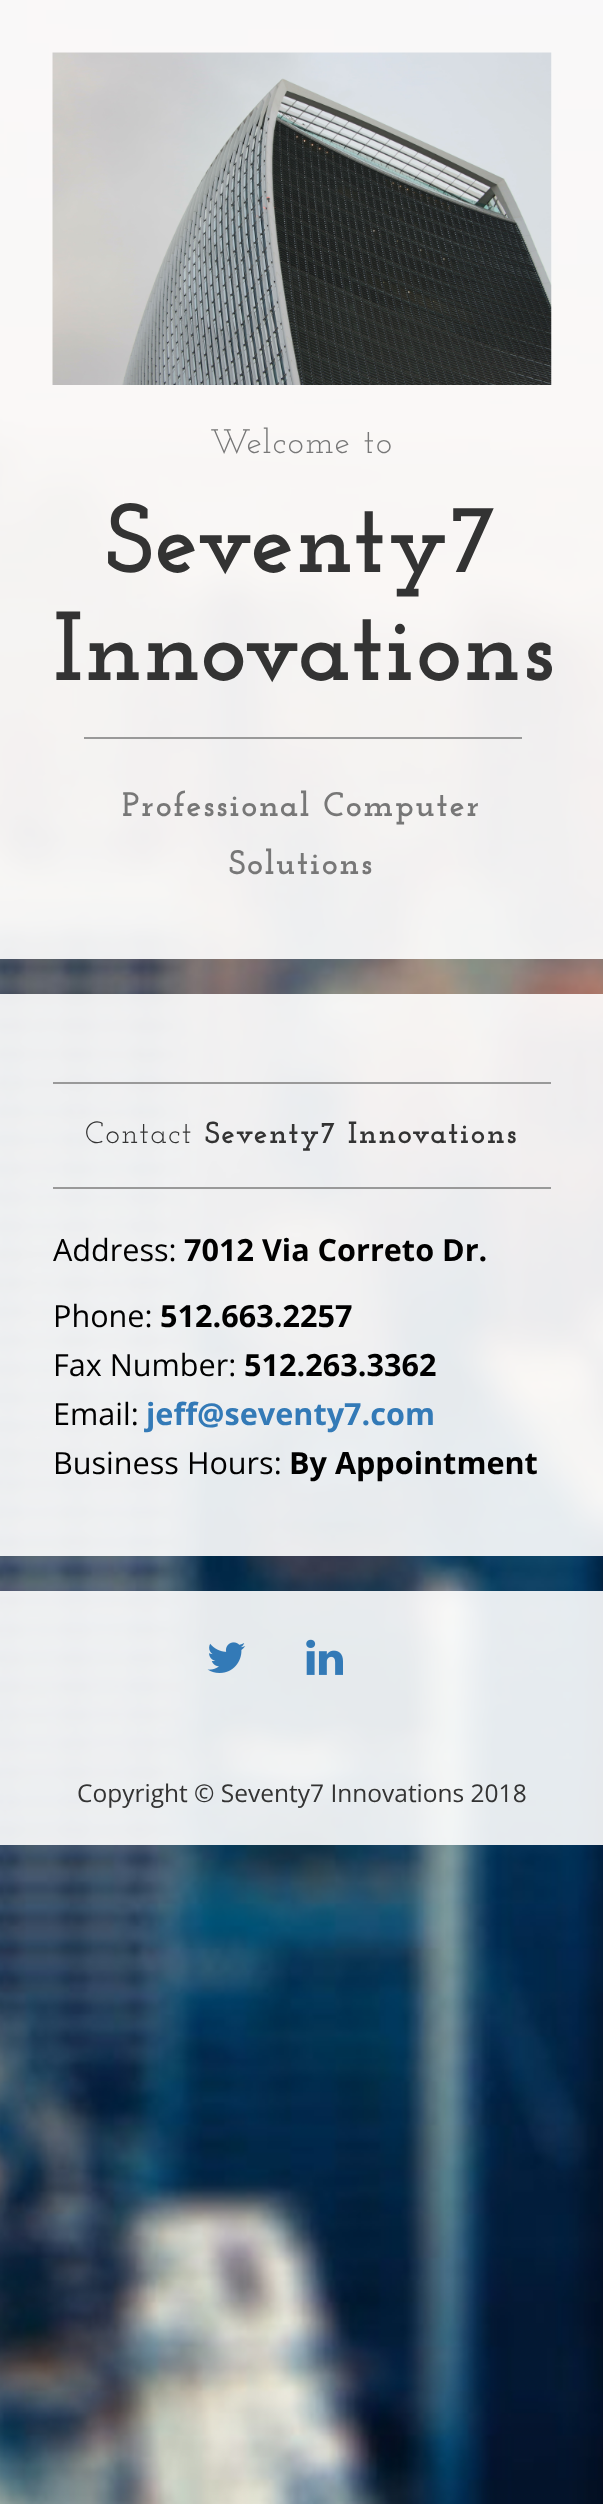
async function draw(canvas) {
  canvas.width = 603;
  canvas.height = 2504;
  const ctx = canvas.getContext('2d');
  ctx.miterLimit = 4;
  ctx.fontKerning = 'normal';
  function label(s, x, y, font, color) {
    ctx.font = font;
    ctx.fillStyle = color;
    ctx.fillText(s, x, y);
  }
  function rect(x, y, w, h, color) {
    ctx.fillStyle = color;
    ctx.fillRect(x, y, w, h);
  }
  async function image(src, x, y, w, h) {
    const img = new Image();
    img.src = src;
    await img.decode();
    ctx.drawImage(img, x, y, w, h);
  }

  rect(0, 0, 603, 2504, '#fff');
  await image('assets/img1.png', 0, 0, 603, 2504);
  rect(0, 0, 603, 959, '#ffffffe6');
  await image('assets/img2.png', 52, 52, 500, 333);
  ctx.letterSpacing = '1.75px';
  label('Welcome to', 210, 453, '34.1px Josefin Slab', '#777');
  label('Seventy7', 106, 572, 'bold 98px Josefin Slab', '#333');
  label('Innovations', 53, 680, 'bold 98px Josefin Slab', '#333');
  rect(84, 737, 438, 2, '#999');
  label('Professional Computer', 122, 816, 'bold 34.1px Josefin Slab', '#777');
  label('Solutions', 229, 874, 'bold 34.1px Josefin Slab', '#777');
  rect(0, 994, 603, 562, '#ffffffe6');
  rect(53, 1082, 498, 2, '#999');
  label('Contact', 85, 1143, '30.6px Josefin Slab', '#333');
  label('Seventy7 Innovations', 205, 1143, 'bold 30.6px Josefin Slab', '#333');
  rect(53, 1187, 498, 2, '#999');
  ctx.letterSpacing = '0px';
  label('Address:', 53, 1261, '30.6px Open Sans', '#000');
  label('7012 Via Correto Dr.', 184, 1261, 'bold 30.6px Open Sans', '#000');
  label('Phone:', 53, 1327, '30.6px Open Sans', '#000');
  label('512.663.2257', 160, 1327, 'bold 30.6px Open Sans', '#000');
  label('Fax Number:', 53, 1376, '30.6px Open Sans', '#000');
  label('512.263.3362', 244, 1376, 'bold 30.6px Open Sans', '#000');
  label('Email:', 53, 1425, '30.6px Open Sans', '#000');
  label('jeff@seventy7.com', 146, 1425, 'bold 30.6px Open Sans', '#337ab7');
  label('Business Hours:', 53, 1474, '30.6px Open Sans', '#000');
  label('By Appointment', 289, 1474, 'bold 30.6px Open Sans', '#000');
  rect(0, 1591, 603, 254, '#ffffffe6');
  await image('assets/img3.png', 207, 1642, 39, 31);
  await image('assets/img4.png', 306, 1639, 37, 36);
  label('Copyright © Seventy7 Innovations 2018', 77, 1802, '24.5px Open Sans', '#333');
}

draw(document.querySelector('canvas'));
